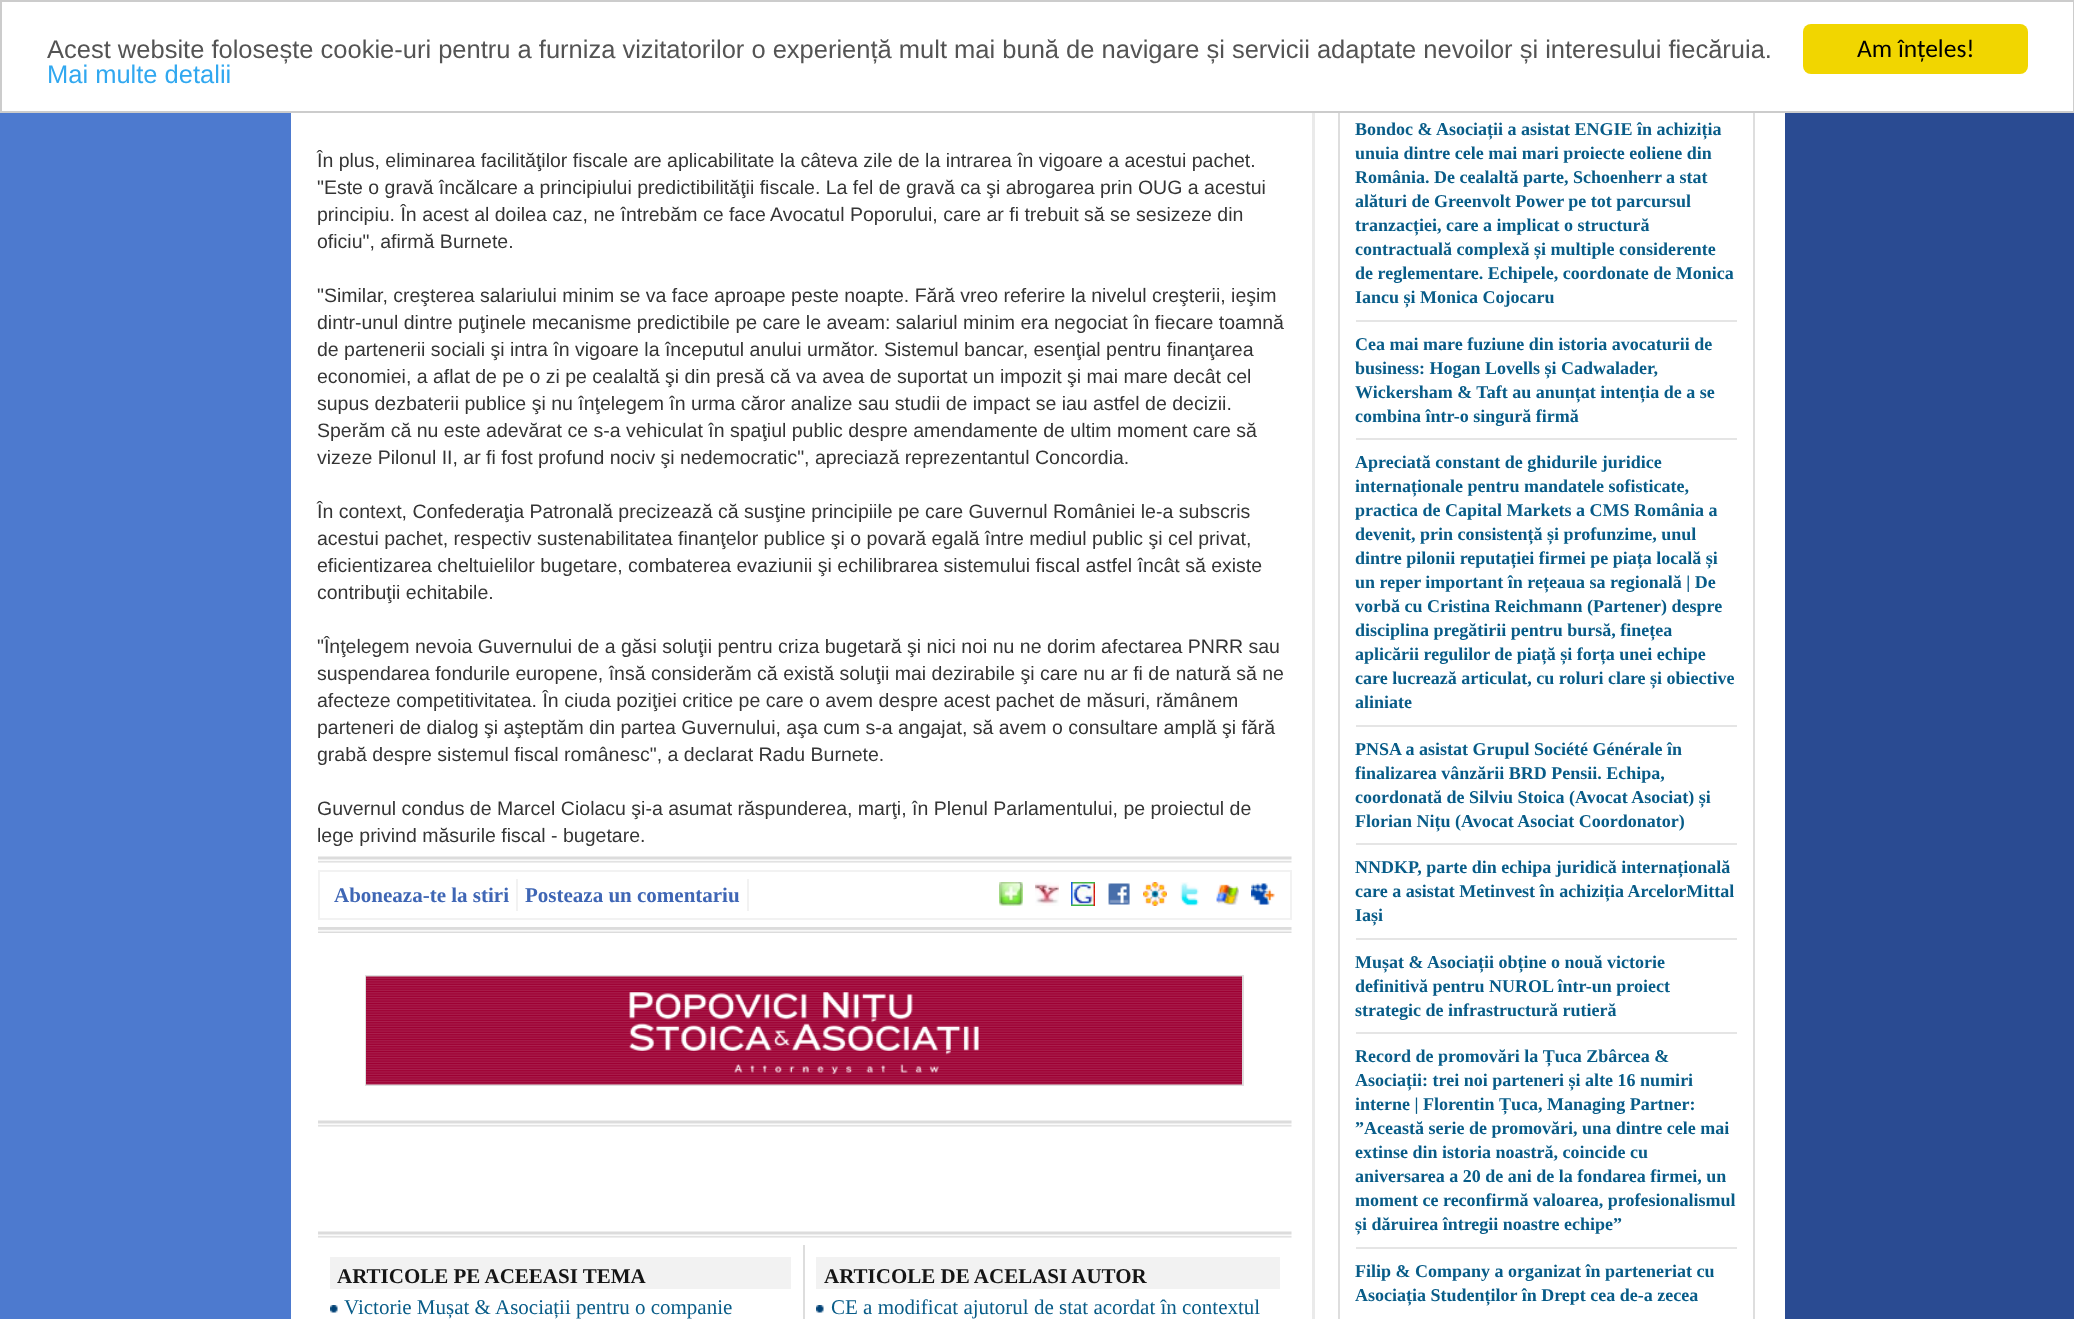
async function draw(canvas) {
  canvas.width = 2074;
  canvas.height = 1319;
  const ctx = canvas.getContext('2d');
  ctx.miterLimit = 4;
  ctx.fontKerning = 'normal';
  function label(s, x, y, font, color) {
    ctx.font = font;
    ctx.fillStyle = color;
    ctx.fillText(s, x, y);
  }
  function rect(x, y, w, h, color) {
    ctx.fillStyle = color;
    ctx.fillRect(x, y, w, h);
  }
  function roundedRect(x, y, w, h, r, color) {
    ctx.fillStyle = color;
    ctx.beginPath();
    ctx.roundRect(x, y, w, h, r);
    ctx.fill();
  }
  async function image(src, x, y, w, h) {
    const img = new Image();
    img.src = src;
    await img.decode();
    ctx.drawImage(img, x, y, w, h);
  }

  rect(0, 0, 2074, 1319, '#fff');
  await image('assets/img1.png', 0, 113, 2074, 1206);
  rect(291, 113, 1494, 1206, '#fff');
  ctx.strokeStyle = '#dedede';
  ctx.lineWidth = 2;
  ctx.strokeRect(1339, -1, 415, 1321);
  rect(1338, 2, 417, 109, '#fff');
  ctx.strokeStyle = '#ccc';
  ctx.strokeRect(1, 1, 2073, 111);
  label('Acest website folosește cookie-uri pentru a furniza vizitatorilor o experiență mult mai bună de navigare și servicii adaptate nevoilor și interesului fiecăruia.', 47, 58, '25.5px Liberation Sans', '#545454');
  label('Mai multe detalii', 47, 83, '25.5px Liberation Sans', '#31a8f0');
  roundedRect(1803, 24, 225, 50, 8, '#f1d600');
  label('Am înțeles!', 1857, 57, '25.5px Carlito', '#000');
  rect(1312, 113, 3, 1206, '#eaeaea');
  label('În plus, eliminarea facilităţilor fiscale are aplicabilitate la câteva zile de la intrarea în vigoare a acestui pachet.', 317, 167, '19.5px Liberation Sans', '#353535');
  label('"Este o gravă încălcare a principiului predictibilităţii fiscale. La fel de gravă ca şi abrogarea prin OUG a acestui', 317, 194, '19.5px Liberation Sans', '#353535');
  label('principiu. În acest al doilea caz, ne întrebăm ce face Avocatul Poporului, care ar fi trebuit să se sesizeze din', 317, 221, '19.5px Liberation Sans', '#353535');
  label('oficiu", afirmă Burnete.', 317, 248, '19.5px Liberation Sans', '#353535');
  label('"Similar, creşterea salariului minim se va face aproape peste noapte. Fără vreo referire la nivelul creşterii, ieşim', 317, 302, '19.5px Liberation Sans', '#353535');
  label('dintr-unul dintre puţinele mecanisme predictibile pe care le aveam: salariul minim era negociat în fiecare toamnă', 317, 329, '19.5px Liberation Sans', '#353535');
  label('de partenerii sociali şi intra în vigoare la începutul anului următor. Sistemul bancar, esenţial pentru finanţarea', 317, 356, '19.5px Liberation Sans', '#353535');
  label('economiei, a aflat de pe o zi pe cealaltă şi din presă că va avea de suportat un impozit şi mai mare decât cel', 317, 383, '19.5px Liberation Sans', '#353535');
  label('supus dezbaterii publice şi nu înţelegem în urma căror analize sau studii de impact se iau astfel de decizii.', 317, 410, '19.5px Liberation Sans', '#353535');
  label('Sperăm că nu este adevărat ce s-a vehiculat în spaţiul public despre amendamente de ultim moment care să', 317, 437, '19.5px Liberation Sans', '#353535');
  label('vizeze Pilonul II, ar fi fost profund nociv şi nedemocratic", apreciază reprezentantul Concordia.', 317, 464, '19.5px Liberation Sans', '#353535');
  label('În context, Confederaţia Patronală precizează că susţine principiile pe care Guvernul României le-a subscris', 317, 518, '19.5px Liberation Sans', '#353535');
  label('acestui pachet, respectiv sustenabilitatea finanţelor publice şi o povară egală între mediul public şi cel privat,', 317, 545, '19.5px Liberation Sans', '#353535');
  label('eficientizarea cheltuielilor bugetare, combaterea evaziunii şi echilibrarea sistemului fiscal astfel încât să existe', 317, 572, '19.5px Liberation Sans', '#353535');
  label('contribuţii echitabile.', 317, 599, '19.5px Liberation Sans', '#353535');
  label('"Înţelegem nevoia Guvernului de a găsi soluţii pentru criza bugetară şi nici noi nu ne dorim afectarea PNRR sau', 317, 653, '19.5px Liberation Sans', '#353535');
  label('suspendarea fondurile europene, însă considerăm că există soluţii mai dezirabile şi care nu ar fi de natură să ne', 317, 680, '19.5px Liberation Sans', '#353535');
  label('afecteze competitivitatea. În ciuda poziţiei critice pe care o avem despre acest pachet de măsuri, rămânem', 317, 707, '19.5px Liberation Sans', '#353535');
  label('parteneri de dialog şi aşteptăm din partea Guvernului, aşa cum s-a angajat, să avem o consultare amplă şi fără', 317, 734, '19.5px Liberation Sans', '#353535');
  label('grabă despre sistemul fiscal românesc", a declarat Radu Burnete.', 317, 761, '19.5px Liberation Sans', '#353535');
  label('Guvernul condus de Marcel Ciolacu şi-a asumat răspunderea, marţi, în Plenul Parlamentului, pe proiectul de', 317, 815, '19.5px Liberation Sans', '#353535');
  label('lege privind măsurile fiscal - bugetare.', 317, 842, '19.5px Liberation Sans', '#353535');
  await image('assets/img2.png', 318, 856, 974, 7);
  ctx.strokeStyle = '#f2f2f2';
  ctx.strokeRect(319, 871, 972, 48);
  rect(516, 879, 2, 32, '#f2f2f2');
  label('Aboneaza-te la stiri', 334, 902, 'bold 21px Liberation Serif', '#3f66b5');
  rect(747, 879, 2, 32, '#f2f2f2');
  label('Posteaza un comentariu', 525, 902, 'bold 21px Liberation Serif', '#3f66b5');
  await image('assets/img3.png', 999, 882, 24, 24);
  await image('assets/img4.png', 1035, 882, 24, 24);
  await image('assets/img5.png', 1071, 882, 24, 24);
  await image('assets/img6.png', 1108, 883, 22, 22);
  await image('assets/img7.png', 1143, 882, 24, 24);
  await image('assets/img8.png', 1180, 882, 19, 24);
  await image('assets/img9.png', 1216, 884, 23, 21);
  await image('assets/img10.png', 1251, 883, 24, 22);
  await image('assets/img11.png', 318, 927, 974, 6);
  ctx.strokeStyle = '#dedede';
  ctx.strokeRect(366, 976, 877, 109);
  await image('assets/img12.png', 366, 976, 876, 109);
  await image('assets/img2.png', 318, 1120, 974, 7);
  await image('assets/img2.png', 318, 1231, 974, 7);
  rect(803, 1245, 2, 74, '#ddd');
  rect(330, 1257, 461, 32, '#f2f2f2');
  label('ARTICOLE PE ACEEASI TEMA', 337, 1283, 'bold 21px Liberation Serif', '#151515');
  await image('assets/img13.png', 330, 1305, 8, 8);
  label('Victorie Mușat & Asociații pentru o companie', 344, 1314, '21px Liberation Serif', '#085c88');
  rect(816, 1257, 464, 32, '#f2f2f2');
  label('ARTICOLE DE ACELASI AUTOR', 824, 1283, 'bold 21px Liberation Serif', '#151515');
  await image('assets/img14.png', 816, 1305, 8, 8);
  label('CE a modificat ajutorul de stat acordat în contextul', 831, 1314, '21px Liberation Serif', '#085c88');
  label('Bondoc & Asociații a asistat ENGIE în achiziția', 1355, 135, 'bold 18px Liberation Serif', '#085c88');
  label('unuia dintre cele mai mari proiecte eoliene din', 1355, 159, 'bold 18px Liberation Serif', '#085c88');
  label('România. De cealaltă parte, Schoenherr a stat', 1355, 183, 'bold 18px Liberation Serif', '#085c88');
  label('alături de Greenvolt Power pe tot parcursul', 1355, 207, 'bold 18px Liberation Serif', '#085c88');
  label('tranzacției, care a implicat o structură', 1355, 231, 'bold 18px Liberation Serif', '#085c88');
  label('contractuală complexă și multiple considerente', 1355, 255, 'bold 18px Liberation Serif', '#085c88');
  label('de reglementare. Echipele, coordonate de Monica', 1355, 279, 'bold 18px Liberation Serif', '#085c88');
  label('Iancu și Monica Cojocaru', 1355, 303, 'bold 18px Liberation Serif', '#085c88');
  rect(1356, 320, 381, 2, '#e5e5e5');
  label('Cea mai mare fuziune din istoria avocaturii de', 1355, 350, 'bold 18px Liberation Serif', '#085c88');
  label('business: Hogan Lovells și Cadwalader,', 1355, 374, 'bold 18px Liberation Serif', '#085c88');
  label('Wickersham & Taft au anunțat intenția de a se', 1355, 398, 'bold 18px Liberation Serif', '#085c88');
  label('combina într-o singură firmă', 1355, 422, 'bold 18px Liberation Serif', '#085c88');
  rect(1356, 438, 381, 2, '#e5e5e5');
  label('Apreciată constant de ghidurile juridice', 1355, 468, 'bold 18px Liberation Serif', '#085c88');
  label('internaționale pentru mandatele sofisticate,', 1355, 492, 'bold 18px Liberation Serif', '#085c88');
  label('practica de Capital Markets a CMS România a', 1355, 516, 'bold 18px Liberation Serif', '#085c88');
  label('devenit, prin consistență și profunzime, unul', 1355, 540, 'bold 18px Liberation Serif', '#085c88');
  label('dintre pilonii reputației firmei pe piața locală și', 1355, 564, 'bold 18px Liberation Serif', '#085c88');
  label('un reper important în rețeaua sa regională | De', 1355, 588, 'bold 18px Liberation Serif', '#085c88');
  label('vorbă cu Cristina Reichmann (Partener) despre', 1355, 612, 'bold 18px Liberation Serif', '#085c88');
  label('disciplina pregătirii pentru bursă, finețea', 1355, 636, 'bold 18px Liberation Serif', '#085c88');
  label('aplicării regulilor de piață și forța unei echipe', 1355, 660, 'bold 18px Liberation Serif', '#085c88');
  label('care lucrează articulat, cu roluri clare și obiective', 1355, 684, 'bold 18px Liberation Serif', '#085c88');
  label('aliniate', 1355, 708, 'bold 18px Liberation Serif', '#085c88');
  rect(1356, 725, 381, 2, '#e5e5e5');
  label('PNSA a asistat Grupul Société Générale în', 1355, 755, 'bold 18px Liberation Serif', '#085c88');
  label('finalizarea vânzării BRD Pensii. Echipa,', 1355, 779, 'bold 18px Liberation Serif', '#085c88');
  label('coordonată de Silviu Stoica (Avocat Asociat) și', 1355, 803, 'bold 18px Liberation Serif', '#085c88');
  label('Florian Nițu (Avocat Asociat Coordonator)', 1355, 827, 'bold 18px Liberation Serif', '#085c88');
  rect(1356, 843, 381, 2, '#e5e5e5');
  label('NNDKP, parte din echipa juridică internațională', 1355, 873, 'bold 18px Liberation Serif', '#085c88');
  label('care a asistat Metinvest în achiziția ArcelorMittal', 1355, 897, 'bold 18px Liberation Serif', '#085c88');
  label('Iași', 1355, 921, 'bold 18px Liberation Serif', '#085c88');
  rect(1356, 938, 381, 2, '#e5e5e5');
  label('Mușat & Asociații obține o nouă victorie', 1355, 968, 'bold 18px Liberation Serif', '#085c88');
  label('definitivă pentru NUROL într-un proiect', 1355, 992, 'bold 18px Liberation Serif', '#085c88');
  label('strategic de infrastructură rutieră', 1355, 1016, 'bold 18px Liberation Serif', '#085c88');
  rect(1356, 1032, 381, 2, '#e5e5e5');
  label('Record de promovări la Țuca Zbârcea &', 1355, 1062, 'bold 18px Liberation Serif', '#085c88');
  label('Asociații: trei noi parteneri și alte 16 numiri', 1355, 1086, 'bold 18px Liberation Serif', '#085c88');
  label('interne | Florentin Țuca, Managing Partner:', 1355, 1110, 'bold 18px Liberation Serif', '#085c88');
  label('”Această serie de promovări, una dintre cele mai', 1355, 1134, 'bold 18px Liberation Serif', '#085c88');
  label('extinse din istoria noastră, coincide cu', 1355, 1158, 'bold 18px Liberation Serif', '#085c88');
  label('aniversarea a 20 de ani de la fondarea firmei, un', 1355, 1182, 'bold 18px Liberation Serif', '#085c88');
  label('moment ce reconfirmă valoarea, profesionalismul', 1355, 1206, 'bold 18px Liberation Serif', '#085c88');
  label('și dăruirea întregii noastre echipe”', 1355, 1230, 'bold 18px Liberation Serif', '#085c88');
  rect(1356, 1247, 381, 2, '#e5e5e5');
  label('Filip & Company a organizat în parteneriat cu', 1355, 1277, 'bold 18px Liberation Serif', '#085c88');
  label('Asociația Studenților în Drept cea de-a zecea', 1355, 1301, 'bold 18px Liberation Serif', '#085c88');
}

draw(document.querySelector('canvas'));
